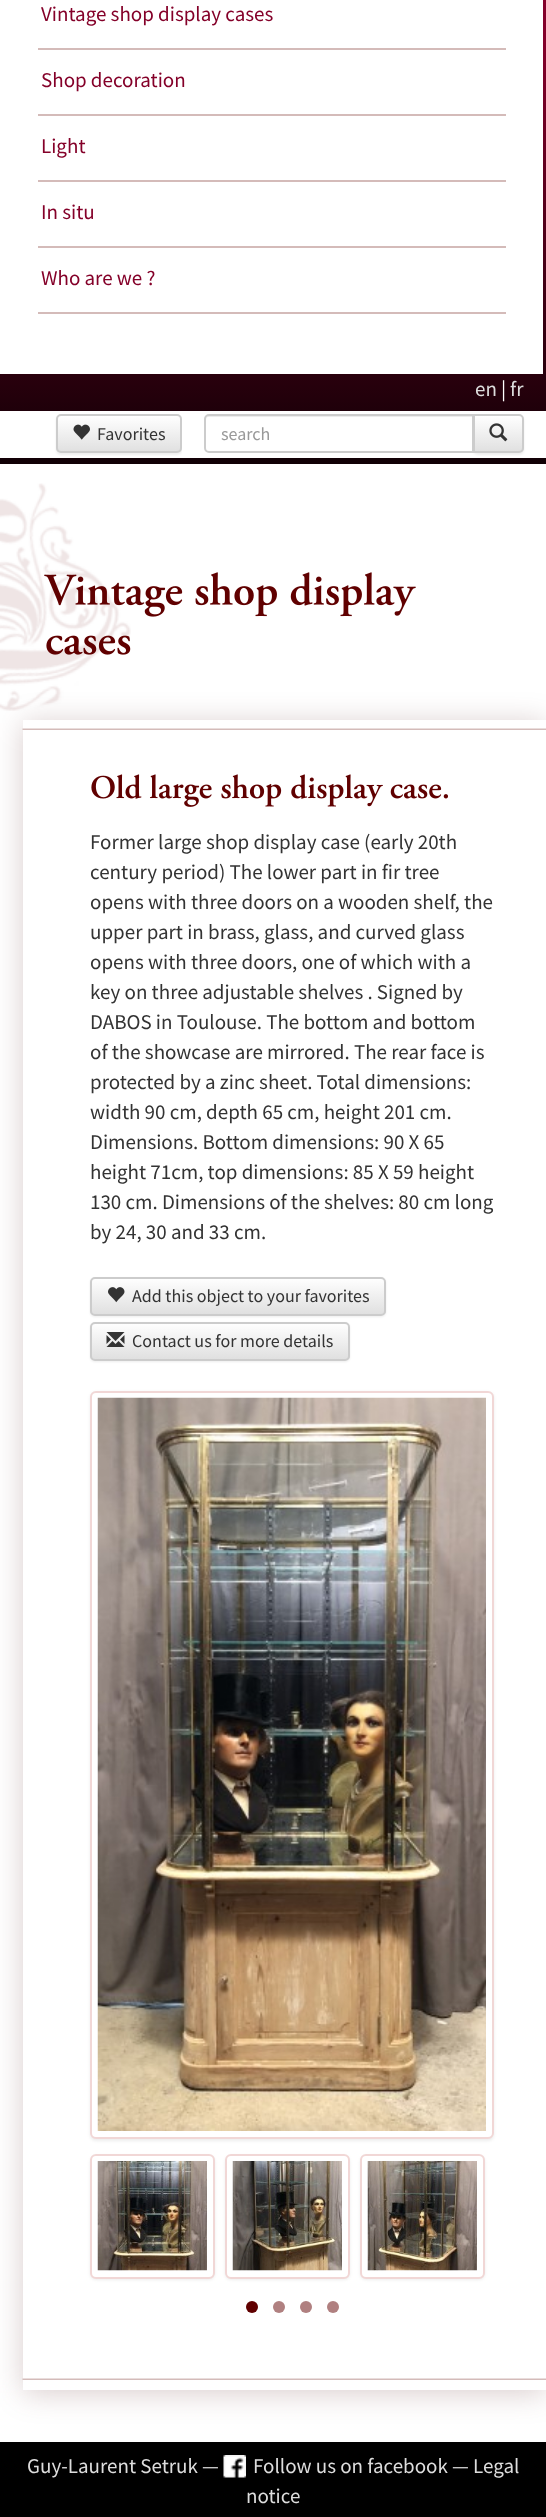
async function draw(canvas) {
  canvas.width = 546;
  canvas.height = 2517;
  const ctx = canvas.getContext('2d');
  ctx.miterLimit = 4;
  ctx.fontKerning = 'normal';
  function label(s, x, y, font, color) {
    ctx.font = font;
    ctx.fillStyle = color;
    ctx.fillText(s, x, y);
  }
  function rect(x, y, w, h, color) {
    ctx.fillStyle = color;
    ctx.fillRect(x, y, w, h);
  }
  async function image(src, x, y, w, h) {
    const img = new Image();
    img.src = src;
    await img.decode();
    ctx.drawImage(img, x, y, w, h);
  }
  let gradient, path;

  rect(0, 0, 546, 2517, '#000');
  gradient = ctx.createLinearGradient(273, 0, 273, 525);
  gradient.addColorStop(0.08, '#84002a');
  gradient.addColorStop(1, '#000');
  ctx.fillStyle = gradient;
  ctx.fillRect(0, 0, 546, 464);
  gradient = ctx.createLinearGradient(271, -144, 272, 1206);
  gradient.addColorStop(0.4, '#fff');
  gradient.addColorStop(1, '#3b2124');
  ctx.fillStyle = gradient;
  ctx.fillRect(0, 0, 543, 374);
  rect(38, 48, 468, 2, '#d4bbb9');
  label('Vintage shop display cases', 41, 21, '21px Source Sans Pro', '#840029');
  rect(38, 114, 468, 2, '#d4bbb9');
  label('Shop decoration', 41, 87, '21px Source Sans Pro', '#840029');
  rect(38, 180, 468, 2, '#d4bbb9');
  label('Light', 41, 153, '21px Source Sans Pro', '#840029');
  rect(38, 246, 468, 2, '#d4bbb9');
  label('In situ', 41, 219, '21px Source Sans Pro', '#840029');
  rect(38, 312, 468, 2, '#d4bbb9');
  label('Who are we ?', 41, 285, '21px Source Sans Pro', '#840029');
  label('en', 475, 396, '21px Source Sans Pro', '#ddd');
  label('|', 501, 396, '21px Source Sans Pro', '#fff');
  label('fr', 510, 396, '21px Source Sans Pro', '#ddd');
  rect(0, 411, 182, 47, '#fff');
  ctx.fillStyle = '#00000012';
  ctx.filter = 'blur(1px)';
  ctx.beginPath();
  ctx.roundRect(56, 416, 126, 39, 5);
  ctx.fill();
  ctx.filter = 'none';
  ctx.save();
  ctx.beginPath();
  ctx.roundRect(56, 414, 126, 39, 5);
  ctx.clip();
  gradient = ctx.createLinearGradient(119, 416, 119, 452);
  gradient.addColorStop(0, '#fff');
  gradient.addColorStop(1, '#e0e0e0');
  ctx.fillStyle = gradient;
  ctx.fillRect(56, 416, 126, 36);
  ctx.restore();
  ctx.beginPath();
  ctx.roundRect(57, 415, 124, 37, 4);
  ctx.strokeStyle = '#ccc';
  ctx.lineWidth = 2;
  ctx.stroke();
  await image('assets/img1.png', 73, 424, 17, 16);
  label('Favorites', 97, 440, '18px Source Sans Pro', '#333');
  rect(182, 411, 364, 47, '#fff');
  ctx.fillStyle = '#00000012';
  ctx.filter = 'blur(1px)';
  ctx.beginPath();
  ctx.roundRect(473, 416, 51, 39, 5);
  ctx.fill();
  ctx.filter = 'none';
  ctx.save();
  ctx.beginPath();
  ctx.roundRect(473, 414, 51, 39, [0, 5, 5, 0]);
  ctx.clip();
  gradient = ctx.createLinearGradient(498, 416, 498, 452);
  gradient.addColorStop(0, '#fff');
  gradient.addColorStop(1, '#e0e0e0');
  ctx.fillStyle = gradient;
  ctx.fillRect(475, 416, 49, 36);
  ctx.restore();
  ctx.beginPath();
  ctx.roundRect(474, 415, 49, 37, [0, 4, 4, 0]);
  ctx.stroke();
  ctx.fillStyle = '#fff';
  ctx.beginPath();
  ctx.roundRect(204, 414, 270, 39, [5, 0, 0, 5]);
  ctx.fill();
  ctx.fillStyle = '#ececec';
  path = new Path2D('M208 417H472V452H473V416H209C207 416 206 417 206 419V420C206 418 207 417 208 417Z');
  ctx.fill(path);
  ctx.beginPath();
  ctx.roundRect(205, 415, 268, 37, [4, 0, 0, 4]);
  ctx.stroke();
  label('search', 221, 440, '18px Source Sans Pro', '#999');
  await image('assets/img2.png', 489, 423, 19, 19);
  rect(0, 464, 546, 1978, '#fff');
  await image('assets/img3.png', 0, 483, 131, 228);
  await image('assets/img4.png', 44, 572, 372, 45);
  await image('assets/img5.png', 46, 635, 85, 20);
  ctx.fillStyle = '#3c000033';
  ctx.filter = 'blur(15px)';
  ctx.beginPath();
  ctx.rect(23, 723, 523, 1670);
  ctx.fill();
  ctx.filter = 'none';
  rect(23, 720, 523, 1670, '#fff');
  await image('assets/img6.png', 22, 728, 524, 1652);
  await image('assets/img7.png', 91, 774, 357, 33);
  label('Former large shop display case (early 20th', 90, 849, '21px Source Sans Pro', '#333');
  label('century period) The lower part in fir tree', 90, 879, '21px Source Sans Pro', '#333');
  label('opens with three doors on a wooden shelf, the', 90, 909, '21px Source Sans Pro', '#333');
  label('upper part in brass, glass, and curved glass', 90, 939, '21px Source Sans Pro', '#333');
  label('opens with three doors, one of which with a', 90, 969, '21px Source Sans Pro', '#333');
  label('key on three adjustable shelves . Signed by', 90, 999, '21px Source Sans Pro', '#333');
  label('DABOS in Toulouse. The bottom and bottom', 90, 1029, '21px Source Sans Pro', '#333');
  label('of the showcase are mirrored. The rear face is', 90, 1059, '21px Source Sans Pro', '#333');
  label('protected by a zinc sheet. Total dimensions:', 90, 1089, '21px Source Sans Pro', '#333');
  label('width 90 cm, depth 65 cm, height 201 cm.', 90, 1119, '21px Source Sans Pro', '#333');
  label('Dimensions. Bottom dimensions: 90 X 65', 90, 1149, '21px Source Sans Pro', '#333');
  label('height 71cm, top dimensions: 85 X 59 height', 90, 1179, '21px Source Sans Pro', '#333');
  label('130 cm. Dimensions of the shelves: 80 cm long', 90, 1209, '21px Source Sans Pro', '#333');
  label('by 24, 30 and 33 cm.', 90, 1239, '21px Source Sans Pro', '#333');
  ctx.fillStyle = '#00000012';
  ctx.filter = 'blur(1px)';
  ctx.beginPath();
  ctx.roundRect(90, 1278, 296, 39, 5);
  ctx.fill();
  ctx.filter = 'none';
  ctx.save();
  ctx.beginPath();
  ctx.roundRect(90, 1277, 296, 39, 5);
  ctx.clip();
  gradient = ctx.createLinearGradient(238, 1278, 238, 1314);
  gradient.addColorStop(0, '#fff');
  gradient.addColorStop(1, '#e0e0e0');
  ctx.fillStyle = gradient;
  ctx.fillRect(90, 1278, 296, 36);
  ctx.restore();
  ctx.beginPath();
  ctx.roundRect(91, 1278, 294, 37, 4);
  ctx.stroke();
  await image('assets/img8.png', 108, 1287, 17, 16);
  label('Add this object to your favorites', 132, 1302, '18px Source Sans Pro', '#333');
  ctx.fillStyle = '#00000012';
  ctx.filter = 'blur(1px)';
  ctx.beginPath();
  ctx.roundRect(90, 1323, 260, 39, 5);
  ctx.fill();
  ctx.filter = 'none';
  ctx.save();
  ctx.beginPath();
  ctx.roundRect(90, 1322, 260, 39, 5);
  ctx.clip();
  gradient = ctx.createLinearGradient(220, 1323, 220, 1359);
  gradient.addColorStop(0, '#fff');
  gradient.addColorStop(1, '#e0e0e0');
  ctx.fillStyle = gradient;
  ctx.fillRect(90, 1323, 260, 36);
  ctx.restore();
  ctx.beginPath();
  ctx.roundRect(91, 1323, 258, 37, 4);
  ctx.stroke();
  await image('assets/img9.png', 106, 1332, 19, 15);
  label('Contact us for more details', 132, 1347, '18px Source Sans Pro', '#333');
  ctx.fillStyle = '#00000012';
  ctx.filter = 'blur(1.5px)';
  ctx.beginPath();
  ctx.roundRect(90, 1392, 404, 749, 6);
  ctx.fill();
  ctx.filter = 'none';
  ctx.fillStyle = '#fff';
  ctx.beginPath();
  ctx.roundRect(91, 1392, 402, 746, 5);
  ctx.fill();
  ctx.strokeStyle = '#f1d7d6';
  ctx.stroke();
  await image('assets/img10.png', 97, 1397, 389, 734);
  ctx.fillStyle = '#00000012';
  ctx.filter = 'blur(1.5px)';
  ctx.beginPath();
  ctx.roundRect(90, 2156, 125, 124, 6);
  ctx.fill();
  ctx.filter = 'none';
  ctx.fillStyle = '#fff';
  ctx.beginPath();
  ctx.roundRect(91, 2155, 123, 123, 5);
  ctx.fill();
  ctx.stroke();
  await image('assets/img11.png', 97, 2161, 110, 110);
  ctx.fillStyle = '#00000012';
  ctx.filter = 'blur(1.5px)';
  ctx.beginPath();
  ctx.roundRect(225, 2156, 125, 124, 6);
  ctx.fill();
  ctx.filter = 'none';
  ctx.fillStyle = '#fff';
  ctx.beginPath();
  ctx.roundRect(226, 2155, 123, 123, 5);
  ctx.fill();
  ctx.stroke();
  await image('assets/img12.png', 232, 2161, 110, 110);
  ctx.fillStyle = '#00000012';
  ctx.filter = 'blur(1.5px)';
  ctx.beginPath();
  ctx.roundRect(360, 2156, 125, 124, 6);
  ctx.fill();
  ctx.filter = 'none';
  ctx.fillStyle = '#fff';
  ctx.beginPath();
  ctx.roundRect(361, 2155, 123, 123, 5);
  ctx.fill();
  ctx.stroke();
  await image('assets/img13.png', 367, 2161, 110, 110);
  ctx.fillStyle = '#600000';
  ctx.beginPath();
  ctx.arc(252, 2307, 6, 0, 2 * Math.PI);
  ctx.fill();
  ctx.fillStyle = '#b08080';
  ctx.beginPath();
  ctx.arc(279, 2307, 6, 0, 2 * Math.PI);
  ctx.fill();
  ctx.beginPath();
  ctx.arc(306, 2307, 6, 0, 2 * Math.PI);
  ctx.fill();
  ctx.beginPath();
  ctx.arc(333, 2307, 6, 0, 2 * Math.PI);
  ctx.fill();
  label('Guy-Laurent Setruk —', 27, 2473, '21px Source Sans Pro', '#ddd');
  await image('assets/img14.png', 223, 2455, 23, 23);
  label('Follow us on facebook — Legal', 253, 2473, '21px Source Sans Pro', '#ddd');
  label('notice', 246, 2503, '21px Source Sans Pro', '#ddd');
}

draw(document.querySelector('canvas'));
